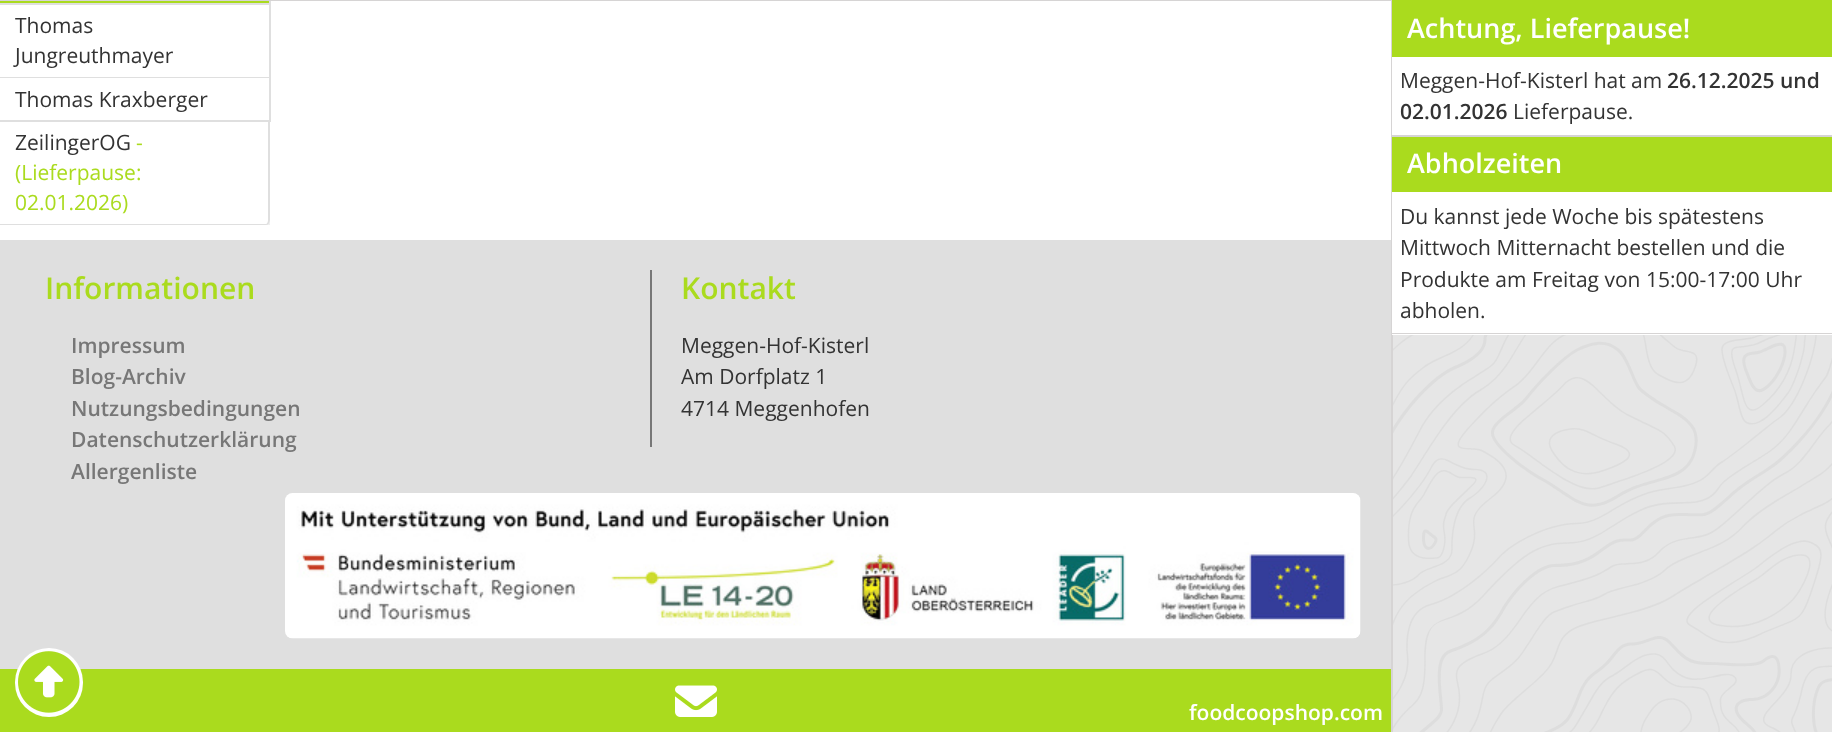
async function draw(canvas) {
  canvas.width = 1832;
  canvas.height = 732;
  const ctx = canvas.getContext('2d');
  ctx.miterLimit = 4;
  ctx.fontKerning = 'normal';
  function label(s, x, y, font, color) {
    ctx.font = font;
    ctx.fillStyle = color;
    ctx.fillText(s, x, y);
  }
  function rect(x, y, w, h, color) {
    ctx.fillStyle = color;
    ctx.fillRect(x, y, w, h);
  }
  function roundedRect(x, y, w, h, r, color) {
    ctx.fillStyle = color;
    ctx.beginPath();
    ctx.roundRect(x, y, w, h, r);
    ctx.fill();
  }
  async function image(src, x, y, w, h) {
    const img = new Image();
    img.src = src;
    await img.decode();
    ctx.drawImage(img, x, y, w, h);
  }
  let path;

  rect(0, 0, 1832, 732, '#e6e6e6');
  await image('assets/img1.png', 1393, 335, 439, 397);
  rect(1391, 0, 1, 240, '#d6d4d4');
  rect(0, 1, 1391, 239, '#fff');
  rect(0, 1, 270, 2, '#aadb1e');
  rect(269, 0, 2, 122, '#dfdfdf');
  rect(0, 0, 1392, 1, '#d6d4d4');
  rect(266, 220, 4, 5, '#efefef');
  rect(0, 3, 270, 2, '#dfdfdf');
  rect(0, 77, 270, 1, '#dfdfdf');
  label('Thomas', 15, 33, '21px Open Sans', '#333');
  label('Jungreuthmayer', 15, 63, '21px Open Sans', '#333');
  rect(0, 120, 270, 2, '#dfdfdf');
  label('Thomas Kraxberger', 15, 107, '21px Open Sans', '#333');
  ctx.fillStyle = '#fff';
  ctx.beginPath();
  ctx.roundRect(0, 122, 270, 103, [0, 0, 5, 0]);
  ctx.fill();
  ctx.fillStyle = '#dfdfdf';
  path = new Path2D('M0 122H270V220C270 223 268 225 266 225H0ZM0 122H268V220C268 222 267 224 266 224H0Z');
  ctx.fill(path, 'evenodd');
  label('ZeilingerOG', 15, 150, '21px Open Sans', '#333');
  label('-', 136, 150, '21px Open Sans', '#aadb1e');
  label('(Lieferpause:', 15, 180, '21px Open Sans', '#aadb1e');
  label('02.01.2026)', 15, 210, '21px Open Sans', '#aadb1e');
  rect(1392, 57, 440, 78, '#fff');
  rect(1392, 135, 440, 2, '#d6d4d4');
  rect(1392, 0, 440, 57, '#aadb1e');
  label('Achtung, Lieferpause!', 1407, 38, '600 27px Open Sans', '#fff');
  label('Meggen-Hof-Kisterl hat am', 1400, 88, '21px Open Sans', '#333');
  label('26.12.2025 und', 1667, 88, '600 21px Open Sans', '#333');
  label('02.01.2026', 1400, 119, '600 21px Open Sans', '#333');
  label('Lieferpause.', 1513, 119, '21px Open Sans', '#333');
  rect(1391, 240, 2, 492, '#d6d4d4');
  rect(1392, 192, 440, 143, '#fff');
  ctx.fillStyle = '#d6d4d4';
  path = new Path2D('M1392 136H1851V330C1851 332 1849 334 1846 334H1392ZM1392 136H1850V330C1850 332 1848 333 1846 333H1392Z');
  ctx.fill(path, 'evenodd');
  rect(1392, 137, 440, 55, '#aadb1e');
  label('Abholzeiten', 1407, 173, '600 27px Open Sans', '#fff');
  label('Du kannst jede Woche bis spätestens', 1400, 224, '21px Open Sans', '#333');
  label('Mittwoch Mitternacht bestellen und die', 1400, 255, '21px Open Sans', '#333');
  label('Produkte am Freitag von 15:00-17:00 Uhr', 1400, 287, '21px Open Sans', '#333');
  label('abholen.', 1400, 318, '21px Open Sans', '#333');
  rect(0, 240, 1391, 429, '#dfdfdf');
  label('Informationen', 45, 299, '600 30px Open Sans', '#aadb1e');
  label('Impressum', 71, 353, '600 21px Open Sans', '#777');
  label('Blog-Archiv', 71, 384, '600 21px Open Sans', '#777');
  label('Nutzungsbedingungen', 71, 416, '600 21px Open Sans', '#777');
  label('Datenschutzerklärung', 71, 447, '600 21px Open Sans', '#777');
  label('Allergenliste', 71, 479, '600 21px Open Sans', '#777');
  rect(650, 270, 2, 177, '#777');
  label('Kontakt', 681, 299, '600 30px Open Sans', '#aadb1e');
  label('Meggen-Hof-Kisterl', 681, 353, '21px Open Sans', '#333');
  label('Am Dorfplatz 1', 681, 384, '21px Open Sans', '#333');
  label('4714 Meggenhofen', 681, 416, '21px Open Sans', '#333');
  await image('assets/img2.png', 285, 493, 1076, 146);
  rect(0, 669, 1391, 63, '#aadb1e');
  await image('assets/img3.png', 675, 685, 42, 32);
  label('foodcoopshop.com', 1189, 720, '600 21px Open Sans', '#fff');
  roundedRect(15, 648, 68, 69, 34, '#fff');
  await image('assets/img4.png', 18, 651, 62, 62);
}

draw(document.querySelector('canvas'));
